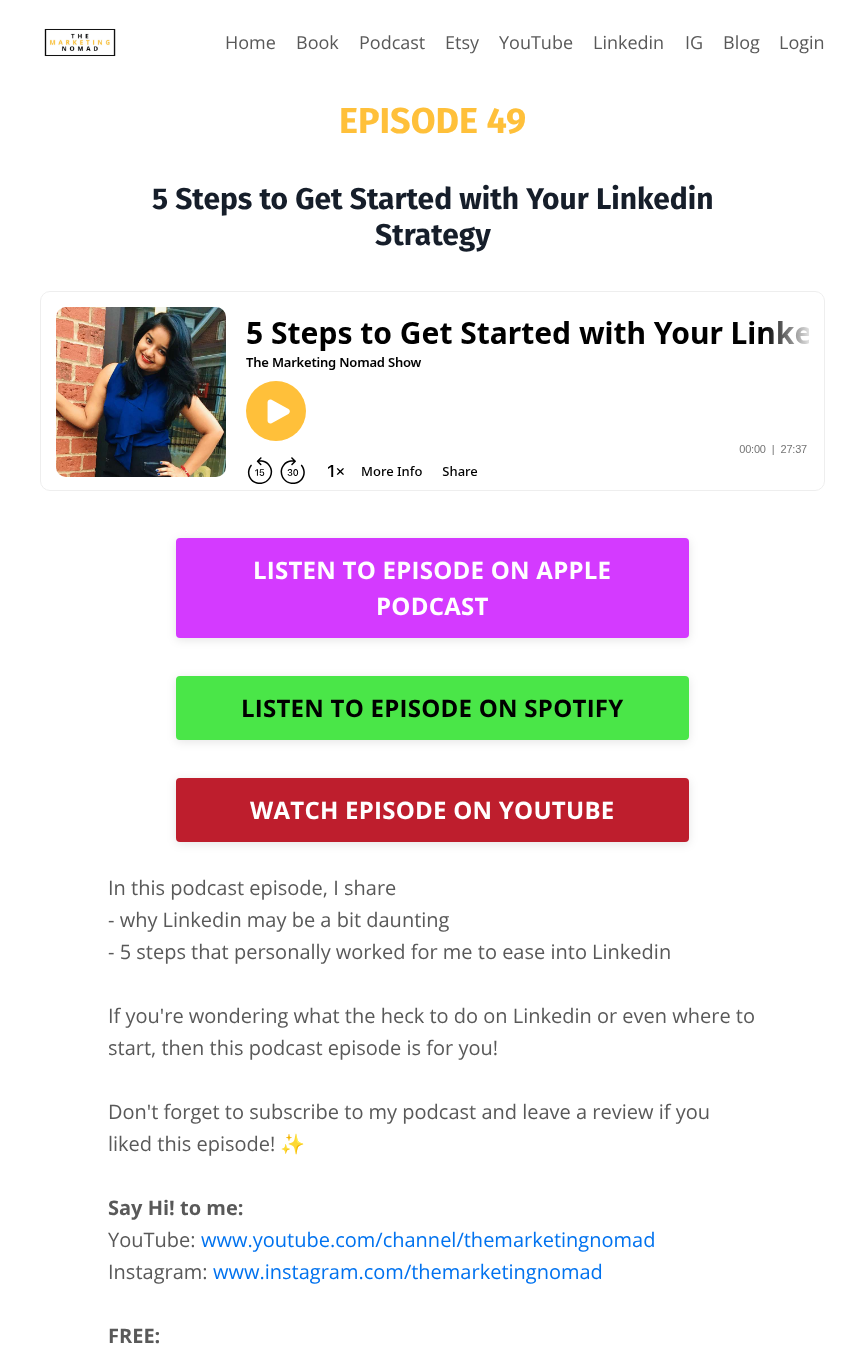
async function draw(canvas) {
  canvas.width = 865;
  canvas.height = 1369;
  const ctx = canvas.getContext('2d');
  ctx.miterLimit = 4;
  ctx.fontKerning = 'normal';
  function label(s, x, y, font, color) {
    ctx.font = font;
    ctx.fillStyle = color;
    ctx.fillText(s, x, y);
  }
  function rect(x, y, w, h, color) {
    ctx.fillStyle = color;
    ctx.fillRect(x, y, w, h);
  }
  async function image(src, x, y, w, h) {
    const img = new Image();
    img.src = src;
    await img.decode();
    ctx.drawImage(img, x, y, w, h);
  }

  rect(0, 0, 865, 1369, '#fff');
  await image('assets/img1.png', 44, 28, 72, 29);
  label('Home', 225, 49, '18px Open Sans', '#595959');
  label('Book', 296, 49, '18px Open Sans', '#595959');
  label('Podcast', 359, 49, '18px Open Sans', '#595959');
  label('Etsy', 445, 49, '18px Open Sans', '#595959');
  label('YouTube', 499, 49, '18px Open Sans', '#595959');
  label('Linkedin', 593, 49, '18px Open Sans', '#595959');
  label('IG', 685, 49, '18px Open Sans', '#595959');
  label('Blog', 723, 49, '18px Open Sans', '#595959');
  label('Login', 779, 49, '18px Open Sans', '#595959');
  label('EPISODE 49', 339, 133, 'bold 36px Fira Sans', '#ffc03a');
  label('5 Steps to Get Started with Your Linkedin', 152, 209, 'bold 30px Fira Sans', '#161e2a');
  label('Strategy', 375, 245, 'bold 30px Fira Sans', '#161e2a');
  await image('assets/img2.png', 40, 291, 785, 200);
  ctx.fillStyle = '#0000001a';
  ctx.filter = 'blur(5px)';
  ctx.beginPath();
  ctx.roundRect(176, 540, 513, 100, 4);
  ctx.fill();
  ctx.filter = 'none';
  ctx.fillStyle = '#d43aff';
  ctx.beginPath();
  ctx.roundRect(177, 539, 511, 98, 3);
  ctx.fill();
  ctx.strokeStyle = '#d43aff';
  ctx.lineWidth = 2;
  ctx.stroke();
  ctx.letterSpacing = '0.25px';
  label('LISTEN TO EPISODE ON APPLE', 253, 579, 'bold 24px Open Sans', '#fff');
  label('PODCAST', 376, 615, 'bold 24px Open Sans', '#fff');
  ctx.fillStyle = '#0000001a';
  ctx.filter = 'blur(5px)';
  ctx.beginPath();
  ctx.roundRect(176, 678, 513, 64, 4);
  ctx.fill();
  ctx.filter = 'none';
  ctx.fillStyle = '#4ae648';
  ctx.beginPath();
  ctx.roundRect(177, 677, 511, 62, 3);
  ctx.fill();
  ctx.strokeStyle = '#4ae648';
  ctx.stroke();
  label('LISTEN TO EPISODE ON SPOTIFY', 241, 717, 'bold 24px Open Sans', '#000');
  ctx.fillStyle = '#0000001a';
  ctx.filter = 'blur(5px)';
  ctx.beginPath();
  ctx.roundRect(176, 780, 513, 64, 4);
  ctx.fill();
  ctx.filter = 'none';
  ctx.fillStyle = '#be1e2d';
  ctx.beginPath();
  ctx.roundRect(177, 779, 511, 62, 3);
  ctx.fill();
  ctx.strokeStyle = '#be1e2d';
  ctx.stroke();
  label('WATCH EPISODE ON YOUTUBE', 250, 819, 'bold 24px Open Sans', '#fff');
  ctx.letterSpacing = '0px';
  label('In this podcast episode, I share', 108, 895, '20px Open Sans', '#595959');
  label('- why Linkedin may be a bit daunting', 108, 927, '20px Open Sans', '#595959');
  label('- 5 steps that personally worked for me to ease into Linkedin', 108, 959, '20px Open Sans', '#595959');
  label('If you\'re wondering what the heck to do on Linkedin or even where to', 108, 1023, '20px Open Sans', '#595959');
  label('start, then this podcast episode is for you!', 108, 1055, '20px Open Sans', '#595959');
  label('Don\'t forget to subscribe to my podcast and leave a review if you', 108, 1119, '20px Open Sans', '#595959');
  label('liked this episode!', 108, 1151, '20px Open Sans', '#595959');
  label('✨', 280, 1151, '20px Noto Color Emoji', '#595959');
  label('Say Hi! to me:', 108, 1215, 'bold 20px Open Sans', '#595959');
  label('YouTube:', 108, 1247, '20px Open Sans', '#595959');
  label('www.youtube.com/channel/themarketingnomad', 201, 1247, '20px Open Sans', '#0072ef');
  label('Instagram:', 108, 1279, '20px Open Sans', '#595959');
  label('www.instagram.com/themarketingnomad', 213, 1279, '20px Open Sans', '#0072ef');
  label('FREE:', 108, 1343, 'bold 20px Open Sans', '#595959');
}

draw(document.querySelector('canvas'));
